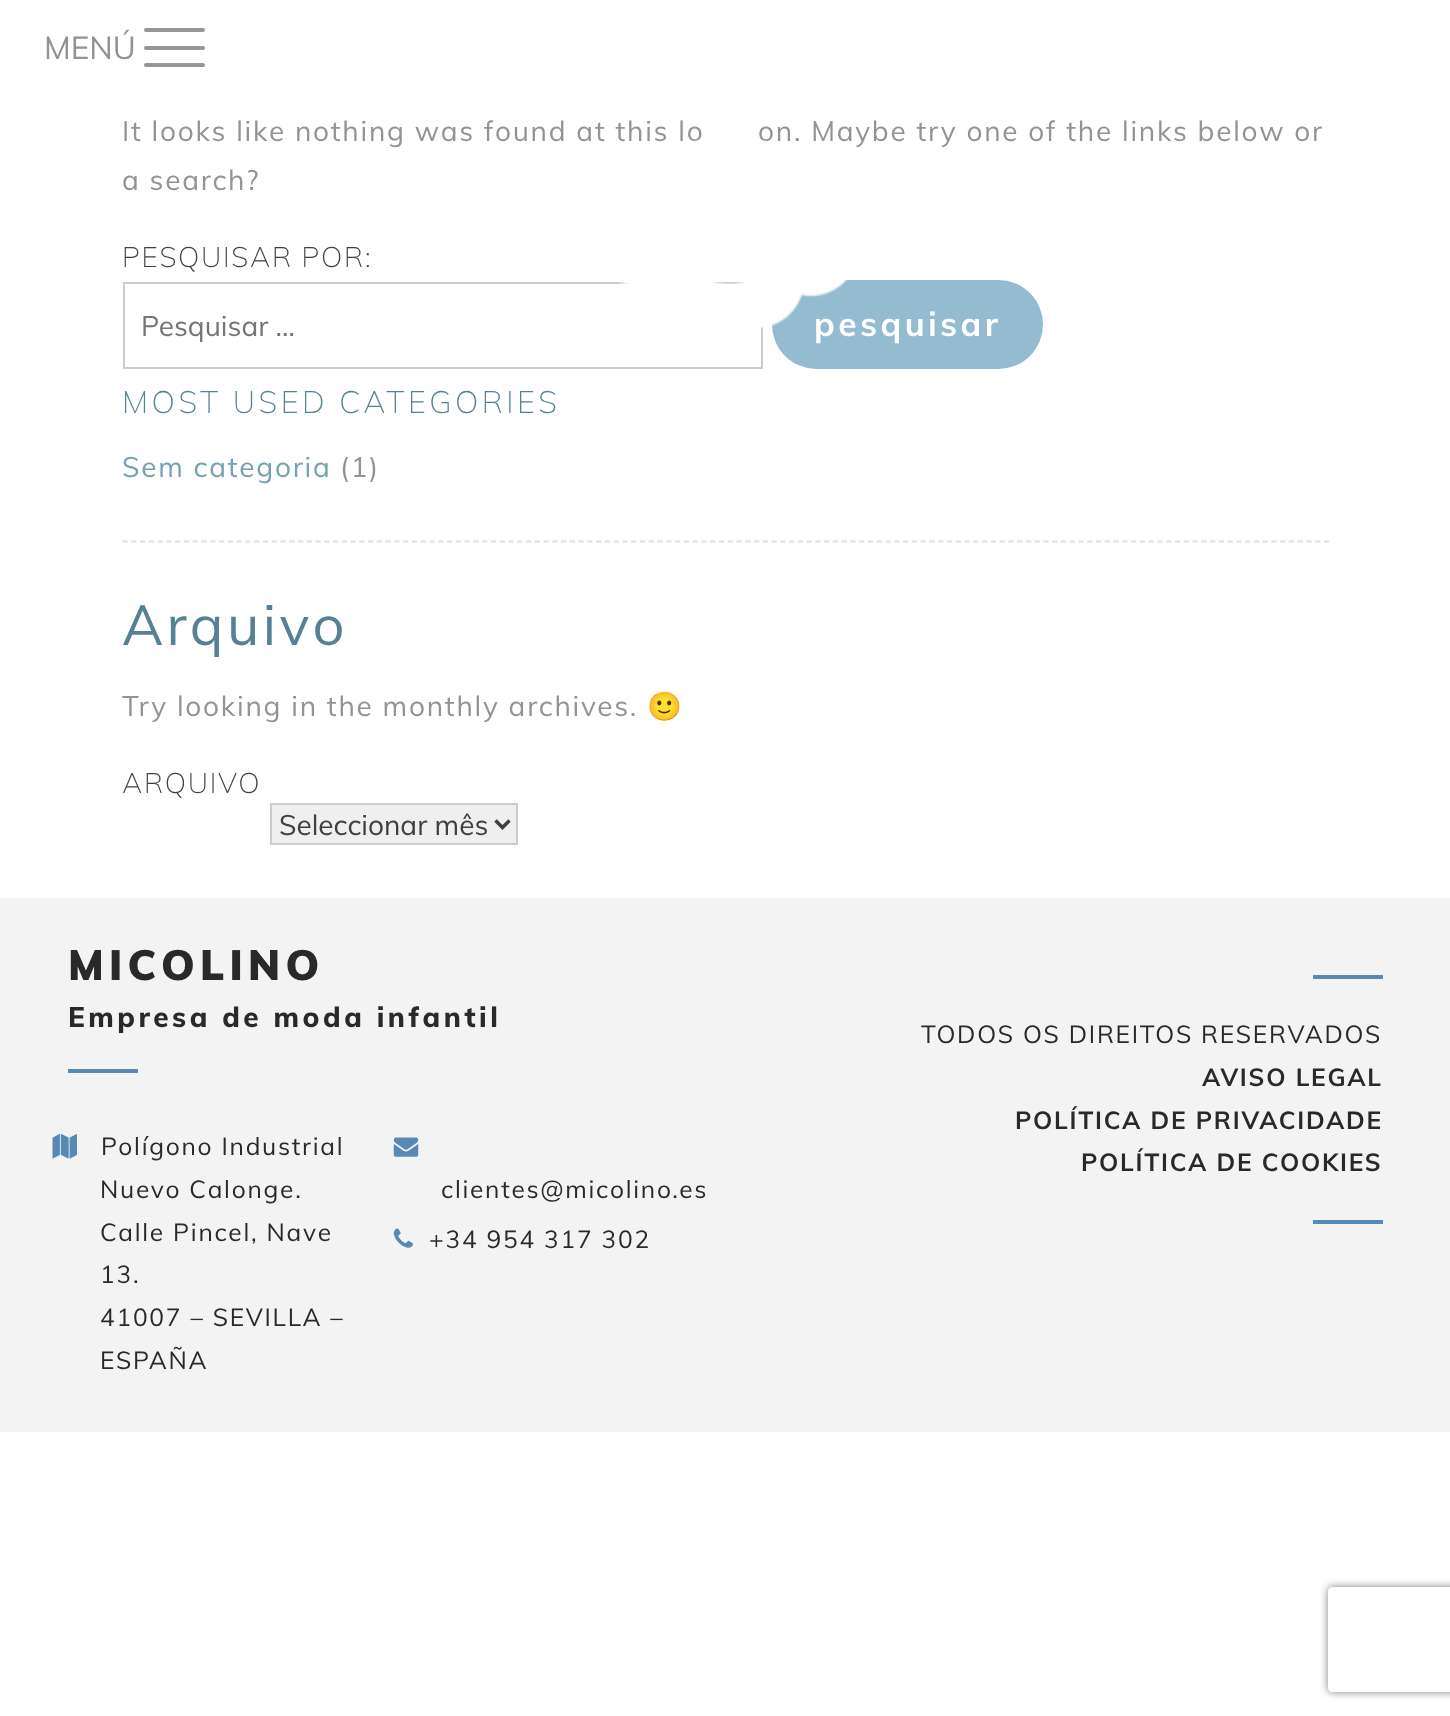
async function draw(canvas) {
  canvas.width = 1450;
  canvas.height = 1716;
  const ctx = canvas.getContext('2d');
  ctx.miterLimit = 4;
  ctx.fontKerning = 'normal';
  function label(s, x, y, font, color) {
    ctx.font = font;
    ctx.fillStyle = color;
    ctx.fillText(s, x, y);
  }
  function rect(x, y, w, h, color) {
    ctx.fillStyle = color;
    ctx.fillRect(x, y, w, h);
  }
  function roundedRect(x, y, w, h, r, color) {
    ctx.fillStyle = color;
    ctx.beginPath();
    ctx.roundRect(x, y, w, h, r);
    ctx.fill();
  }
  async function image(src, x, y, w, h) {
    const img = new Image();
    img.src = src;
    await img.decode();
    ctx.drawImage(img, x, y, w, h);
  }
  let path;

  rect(0, 0, 1450, 1716, '#fff');
  label('MENÚ', 44, 59, '31.5px Muli', '#939393');
  roundedRect(144, 46, 61, 4, 2, '#979797');
  roundedRect(144, 28, 61, 4, 2, '#979797');
  roundedRect(144, 63, 61, 4, 2, '#979797');
  ctx.letterSpacing = '1.75px';
  label('It looks like nothing was found at this lo', 122, 141, '28px Muli', '#939393');
  label('on. Maybe try one of the links below or', 758, 141, '28px Muli', '#939393');
  ctx.strokeStyle = '#ccc';
  ctx.lineWidth = 2;
  ctx.strokeRect(124, 283, 638, 85);
  roundedRect(772, 280, 271, 89, 44.5, '#94bbd0');
  ctx.letterSpacing = '3.5px';
  label('pesquisar', 814, 336, 'bold 33.5px Muli', '#fff');
  await image('assets/img1.png', 619, 126, 229, 203);
  ctx.letterSpacing = '1.75px';
  label('a search?', 122, 190, '28px Muli', '#939393');
  label('PESQUISAR POR:', 122, 267, '200 28px Muli', '#404040');
  ctx.letterSpacing = '0px';
  label('Pesquisar …', 141, 336, '28px Muli', '#757575');
  path = new Path2D('M122.5 541.5H1330');
  ctx.strokeStyle = '#e0e0e0';
  ctx.lineWidth = 1.8;
  ctx.setLineDash([5.25, 3.52]);
  ctx.stroke(path);
  ctx.letterSpacing = '3.5px';
  label('MOST USED CATEGORIES', 122, 413, '200 30.75px Muli', '#568194');
  ctx.letterSpacing = '1.75px';
  label('Sem categoria', 122, 477, '28px Muli', '#74a1b4');
  label('(1)', 340, 477, '28px Muli', '#939393');
  ctx.letterSpacing = '3.5px';
  label('Arquivo', 122, 645, '56px Muli', '#568194');
  ctx.letterSpacing = '1.75px';
  label('Try looking in the monthly archives.', 122, 716, '28px Muli', '#939393');
  label('🙂', 647, 716, '28px Noto Color Emoji', '#939393');
  label('ARQUIVO', 122, 793, '200 28px Muli', '#404040');
  ctx.fillStyle = '#efefef';
  ctx.beginPath();
  ctx.rect(271, 804, 246, 40);
  ctx.fill();
  ctx.strokeStyle = '#ccc';
  ctx.lineWidth = 2;
  ctx.setLineDash([]);
  ctx.stroke();
  path = new Path2D('M495.5 820.5L502.5 827.5L509.5 820.5');
  ctx.strokeStyle = '#404040';
  ctx.lineWidth = 3.5;
  ctx.stroke(path);
  ctx.letterSpacing = '0px';
  label('Seleccionar mês', 279, 835, '28px Muli', '#404040');
  rect(0, 898, 1450, 534, '#f3f3f3');
  ctx.letterSpacing = '5.25px';
  label('MICOLINO', 68, 980, '900 42px Muli', '#292929');
  ctx.letterSpacing = '3.5px';
  label('Empresa de moda infantil', 68, 1027, '800 28px Muli', '#292929');
  rect(68, 1069, 70, 4, '#5889b5');
  await image('assets/img2.png', 52, 1134, 25, 25);
  ctx.letterSpacing = '1.75px';
  label('Polígono Industrial', 101, 1155, '24.5px Muli', '#292929');
  label('Nuevo Calonge.', 100, 1198, '24.5px Muli', '#292929');
  label('Calle Pincel, Nave', 100, 1241, '24.5px Muli', '#292929');
  label('13.', 100, 1283, '24.5px Muli', '#292929');
  label('41007 – SEVILLA –', 100, 1326, '24.5px Muli', '#292929');
  label('ESPAÑA', 100, 1369, '24.5px Muli', '#292929');
  await image('assets/img3.png', 393, 1137, 26, 20);
  label('clientes@micolino.es', 441, 1198, '24.5px Muli', '#292929');
  await image('assets/img4.png', 393, 1228, 20, 20);
  label('+34 954 317 302', 429, 1248, '24.5px Muli', '#292929');
  rect(1313, 975, 70, 4, '#5889b5');
  label('TODOS OS DIREITOS RESERVADOS', 921, 1043, '24.5px Muli', '#292929');
  label('AVISO LEGAL', 1202, 1086, 'bold 24.5px Muli', '#292929');
  label('POLÍTICA DE PRIVACIDADE', 1015, 1129, 'bold 24.5px Muli', '#292929');
  label('POLÍTICA DE COOKIES', 1081, 1171, 'bold 24.5px Muli', '#292929');
  rect(1313, 1220, 70, 4, '#5889b5');
  ctx.save();
  path = new Path2D('M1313 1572H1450V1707H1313ZM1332 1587H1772C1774 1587 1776 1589 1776 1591V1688C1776 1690 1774 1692 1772 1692H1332C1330 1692 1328 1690 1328 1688V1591C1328 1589 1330 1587 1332 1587Z');
  ctx.clip(path, 'evenodd');
  ctx.fillStyle = '#808080';
  ctx.filter = 'blur(4.5px)';
  ctx.beginPath();
  ctx.roundRect(1328, 1587, 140, 105, 4);
  ctx.fill();
  ctx.filter = 'none';
  ctx.restore();
}

draw(document.querySelector('canvas'));
